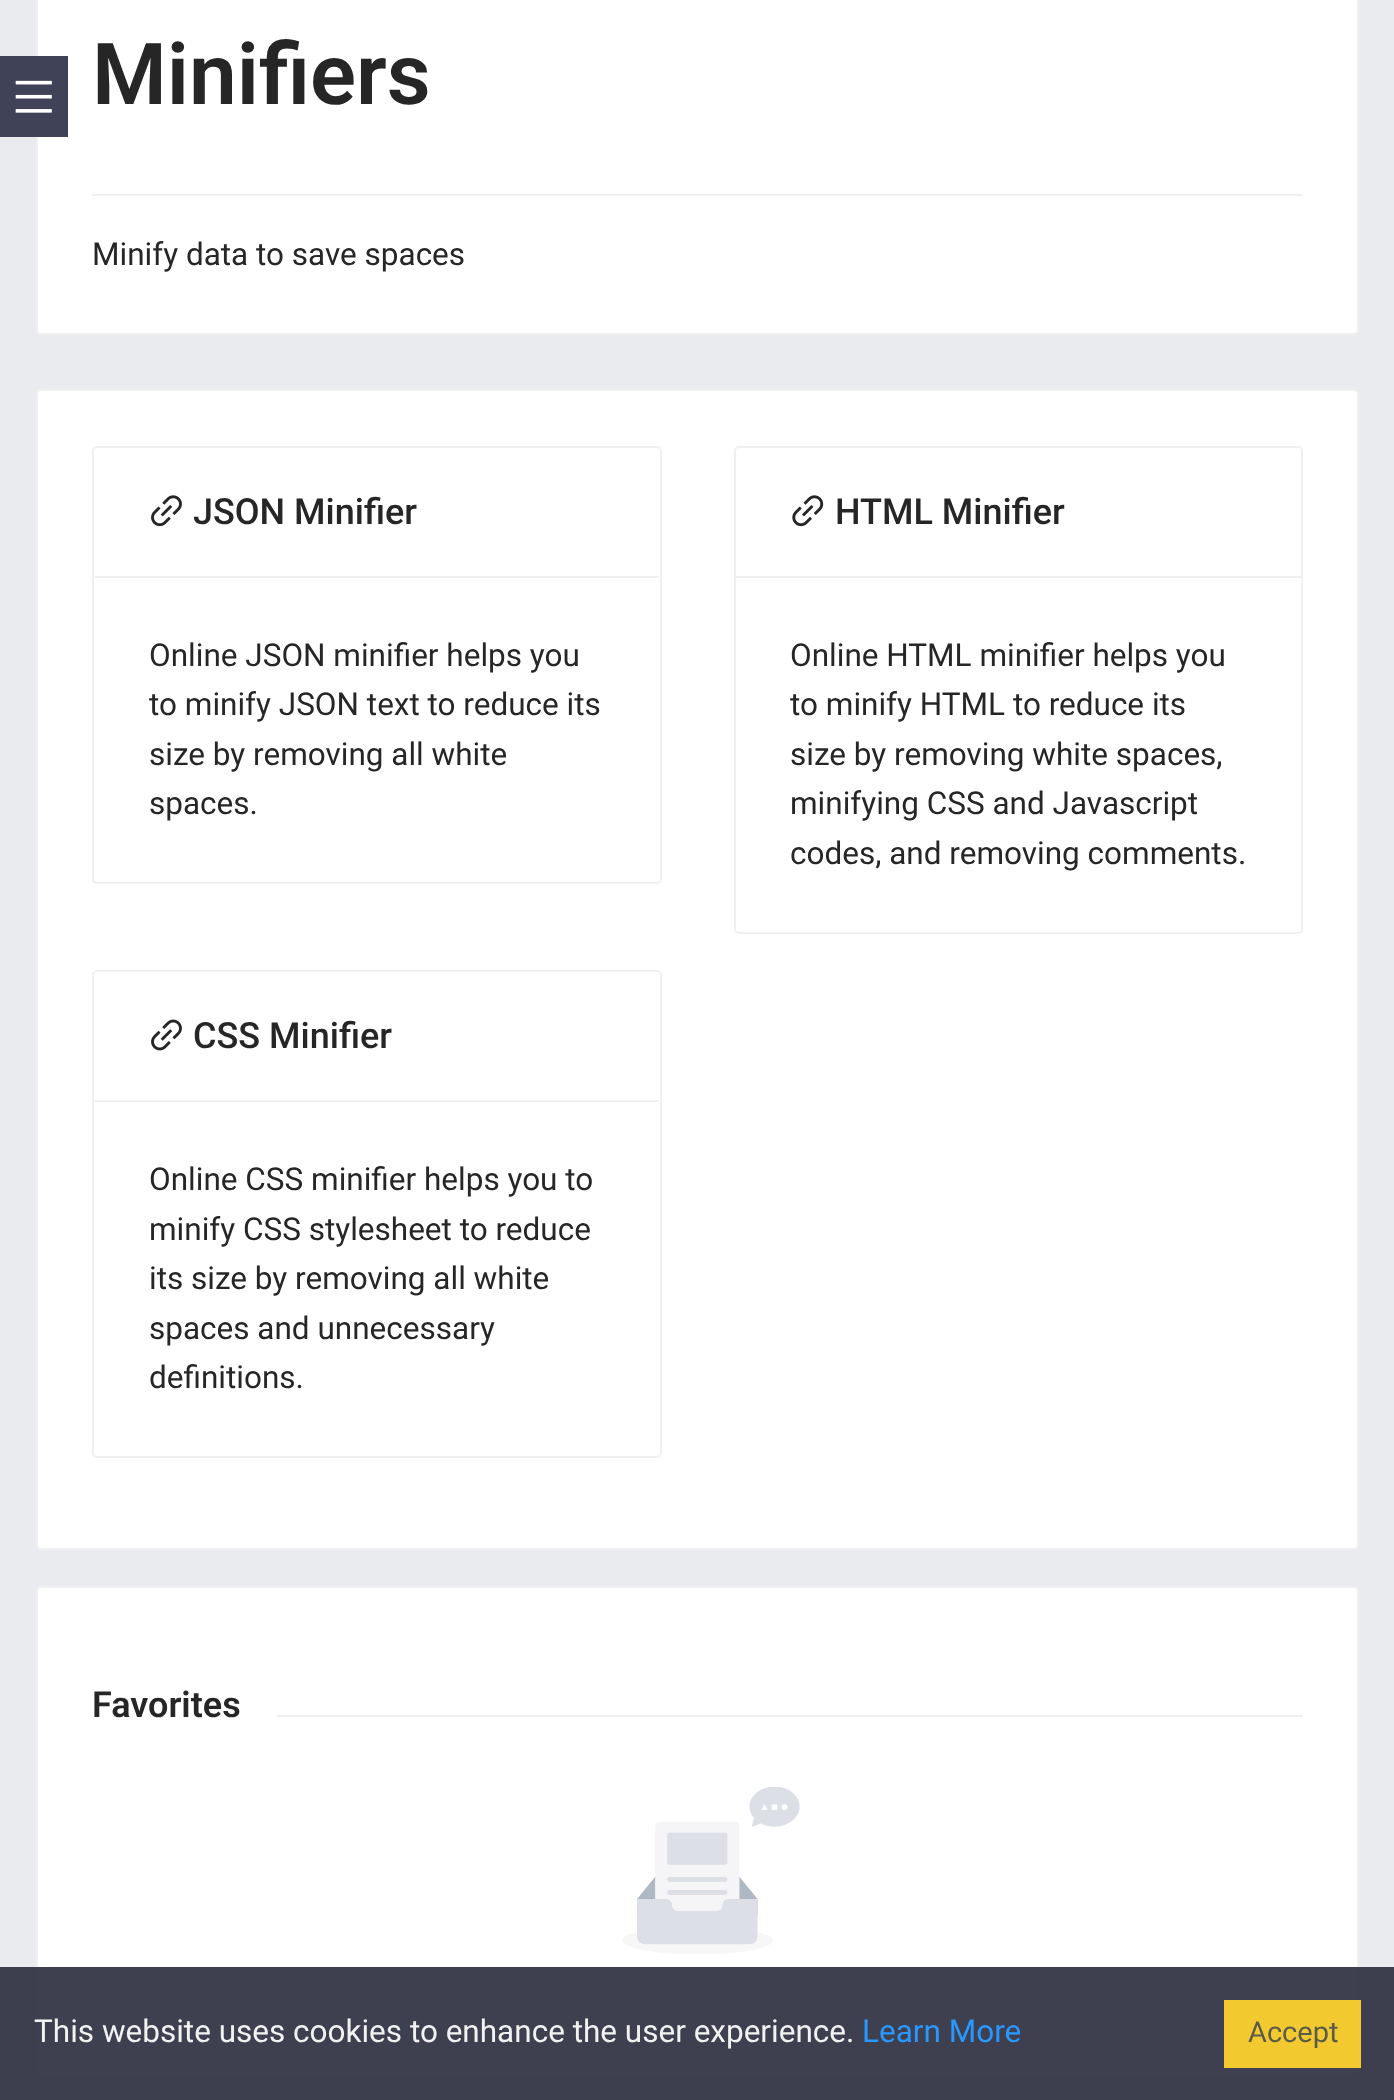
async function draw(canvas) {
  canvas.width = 1394;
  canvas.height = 2100;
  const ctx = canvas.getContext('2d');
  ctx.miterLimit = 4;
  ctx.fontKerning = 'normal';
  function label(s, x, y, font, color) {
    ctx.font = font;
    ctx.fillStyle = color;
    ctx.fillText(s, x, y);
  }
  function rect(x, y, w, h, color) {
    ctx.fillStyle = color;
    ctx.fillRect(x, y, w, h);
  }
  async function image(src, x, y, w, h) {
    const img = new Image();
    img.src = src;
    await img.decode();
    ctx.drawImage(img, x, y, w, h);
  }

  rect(0, 0, 1394, 2100, '#eaebee');
  ctx.fillStyle = '#fff';
  ctx.beginPath();
  ctx.roundRect(37, -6, 1321, 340, 4);
  ctx.fill();
  ctx.strokeStyle = '#f0f0f0';
  ctx.lineWidth = 2;
  ctx.stroke();
  rect(0, 56, 68, 81, '#404258');
  await image('assets/img1.png', 15, 80, 37, 33);
  label('Minifiers', 92, 104, '600 85.5px Roboto', '#262626');
  rect(92, 194, 1211, 2, '#f0f0f0');
  label('Minify data to save spaces', 92, 265, '31.5px Roboto', '#262626');
  ctx.fillStyle = '#fff';
  ctx.beginPath();
  ctx.roundRect(37, 390, 1321, 1159, 4);
  ctx.fill();
  ctx.stroke();
  ctx.beginPath();
  ctx.roundRect(93, 447, 568, 436, 4);
  ctx.stroke();
  rect(95, 576, 564, 2, '#f0f0f0');
  await image('assets/img2.png', 151, 495, 31, 32);
  label('JSON Minifier', 193, 524, '500 36px Roboto', '#262626');
  label('Online JSON minifier helps you', 149, 666, '31.5px Roboto', '#262626');
  label('to minify JSON text to reduce its', 149, 715, '31.5px Roboto', '#262626');
  label('size by removing all white', 149, 765, '31.5px Roboto', '#262626');
  label('spaces.', 149, 814, '31.5px Roboto', '#262626');
  ctx.beginPath();
  ctx.roundRect(735, 447, 567, 486, 4);
  ctx.stroke();
  rect(736, 576, 565, 2, '#f0f0f0');
  await image('assets/img3.png', 792, 495, 32, 32);
  label('HTML Minifier', 835, 524, '500 36px Roboto', '#262626');
  label('Online HTML minifier helps you', 790, 666, '31.5px Roboto', '#262626');
  label('to minify HTML to reduce its', 790, 715, '31.5px Roboto', '#262626');
  label('size by removing white spaces,', 790, 765, '31.5px Roboto', '#262626');
  label('minifying CSS and Javascript', 790, 814, '31.5px Roboto', '#262626');
  label('codes, and removing comments.', 790, 864, '31.5px Roboto', '#262626');
  ctx.beginPath();
  ctx.roundRect(93, 971, 568, 486, 4);
  ctx.stroke();
  rect(95, 1100, 564, 2, '#f0f0f0');
  await image('assets/img4.png', 151, 1019, 31, 32);
  label('CSS Minifier', 193, 1048, '500 36px Roboto', '#262626');
  label('Online CSS minifier helps you to', 149, 1190, '31.5px Roboto', '#262626');
  label('minify CSS stylesheet to reduce', 149, 1240, '31.5px Roboto', '#262626');
  label('its size by removing all white', 149, 1289, '31.5px Roboto', '#262626');
  label('spaces and unnecessary', 149, 1339, '31.5px Roboto', '#262626');
  label('definitions.', 149, 1388, '31.5px Roboto', '#262626');
  ctx.fillStyle = '#fff';
  ctx.beginPath();
  ctx.roundRect(37, 1587, 1321, 491, 4);
  ctx.fill();
  ctx.stroke();
  label('Favorites', 92, 1717, '600 36px Roboto', '#262626');
  rect(277, 1715, 1026, 2, '#f0f0f0');
  await image('assets/img5.png', 622, 1787, 178, 167);
  rect(0, 1967, 1394, 133, '#303142ed');
  label('This website uses cookies to enhance the user experience.', 34, 2042, '31.5px Roboto', '#f2f2f3');
  label('Learn More', 862, 2042, '31.5px Roboto', '#2898ff');
  rect(1224, 2000, 137, 68, '#f2ca2f');
  label('Accept', 1248, 2042, '29px Roboto', '#5a5c49');
}

draw(document.querySelector('canvas'));
